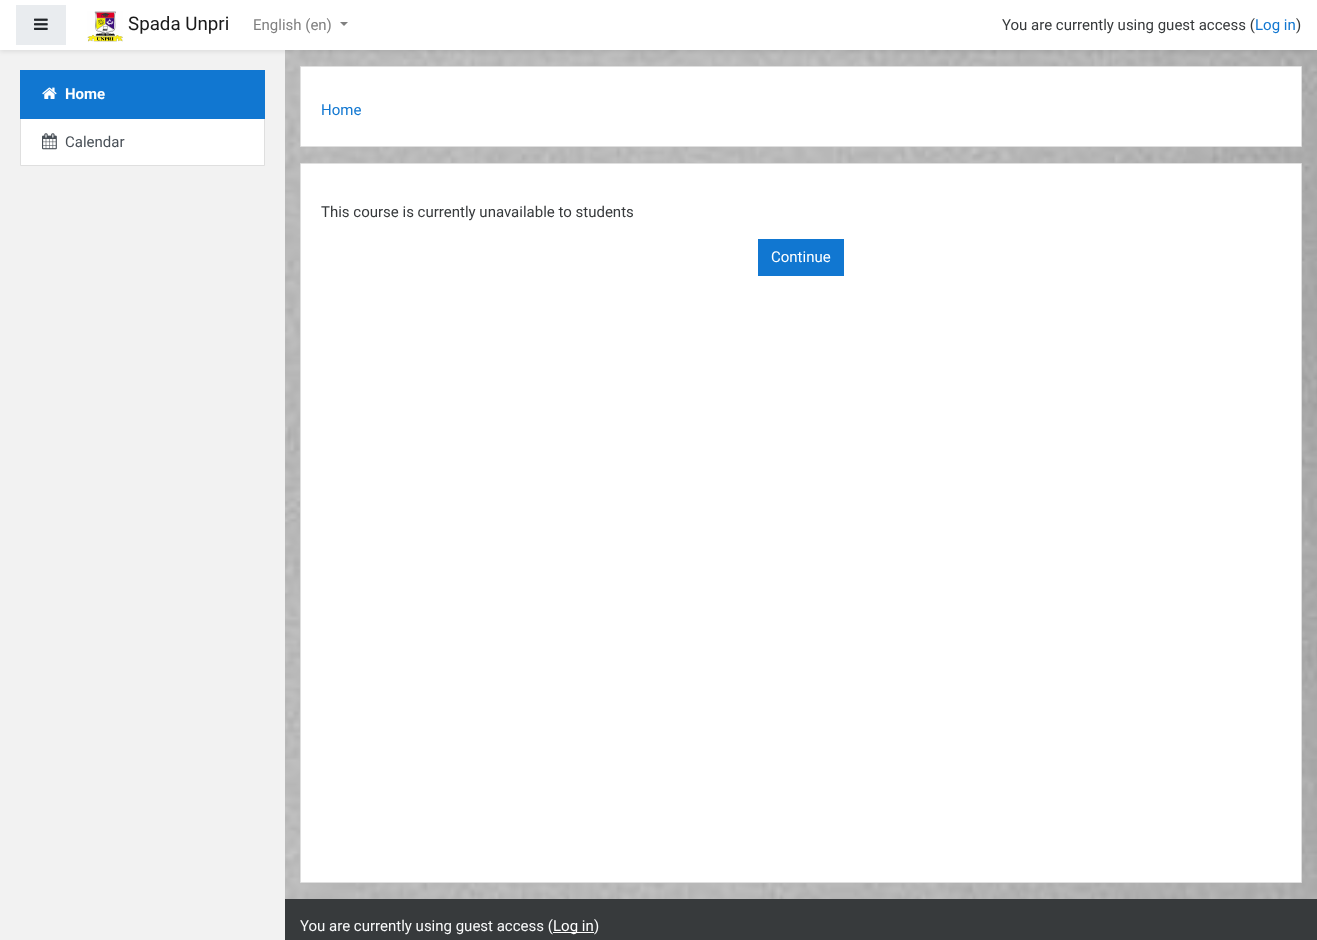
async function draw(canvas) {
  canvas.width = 1317;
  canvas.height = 940;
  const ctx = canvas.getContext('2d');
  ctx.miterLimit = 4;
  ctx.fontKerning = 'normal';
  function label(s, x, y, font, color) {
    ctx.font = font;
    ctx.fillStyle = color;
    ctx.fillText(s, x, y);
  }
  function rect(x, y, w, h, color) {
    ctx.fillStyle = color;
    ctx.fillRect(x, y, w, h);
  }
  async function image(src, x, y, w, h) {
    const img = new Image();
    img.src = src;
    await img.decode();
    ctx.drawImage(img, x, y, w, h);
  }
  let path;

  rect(0, 0, 1317, 940, '#fff');
  await image('assets/img1.png', 285, 50, 1032, 849);
  rect(0, 50, 285, 890, '#f2f2f2');
  ctx.fillStyle = '#00000014';
  ctx.filter = 'blur(2px)';
  ctx.beginPath();
  ctx.rect(0, 2, 1317, 50);
  ctx.fill();
  ctx.filter = 'none';
  rect(0, 0, 1317, 50, '#fff');
  rect(16, 5, 50, 40, '#e9ecef');
  await image('assets/img2.png', 34, 18, 14, 12);
  await image('assets/img3.png', 87, 11, 36, 31);
  label('Spada Unpri', 128, 30, '18.75px Roboto', '#1a1a1a');
  label('English (en)', 253, 30, '15px Roboto', '#808080');
  path = new Path2D('M340 22H348L344 26Z');
  ctx.fill(path);
  label('You are currently using guest access (', 1002, 30, '15px Roboto', '#373a3c');
  label('Log in', 1255, 30, '15px Roboto', '#1177d1');
  label(')', 1296, 30, '15px Roboto', '#373a3c');
  ctx.fillStyle = '#fff';
  ctx.beginPath();
  ctx.rect(20.5, 118.5, 244, 47);
  ctx.fill();
  ctx.strokeStyle = '#dfdfdf';
  ctx.stroke();
  rect(20, 70, 245, 49, '#1177d1');
  await image('assets/img4.png', 42, 87, 15, 12);
  label('Home', 65, 99, 'bold 15px Roboto', '#fff');
  await image('assets/img5.png', 42, 133, 15, 17);
  label('Calendar', 65, 147, '15px Roboto', '#495057');
  ctx.fillStyle = '#fff';
  ctx.beginPath();
  ctx.rect(300.5, 66.5, 1001, 80);
  ctx.fill();
  ctx.stroke();
  label('Home', 321, 115, '15px Roboto', '#1177d1');
  ctx.fillStyle = '#fff';
  ctx.beginPath();
  ctx.rect(300.5, 163.5, 1001, 719);
  ctx.fill();
  ctx.stroke();
  label('This course is currently unavailable to students', 321, 217, '15px Roboto', '#373a3c');
  rect(758, 239, 86, 37, '#1177d1');
  label('Continue', 771, 262, '15px Roboto', '#fff');
  rect(285, 899, 1032, 41, '#373a3c');
  label('You are currently using guest access (', 300, 931, '15px Roboto', '#f8f9fa');
  rect(553, 932, 41, 1, '#fff');
  label('Log in', 553, 931, '15px Roboto', '#fff');
  label(')', 594, 931, '15px Roboto', '#f8f9fa');
}

draw(document.querySelector('canvas'));
